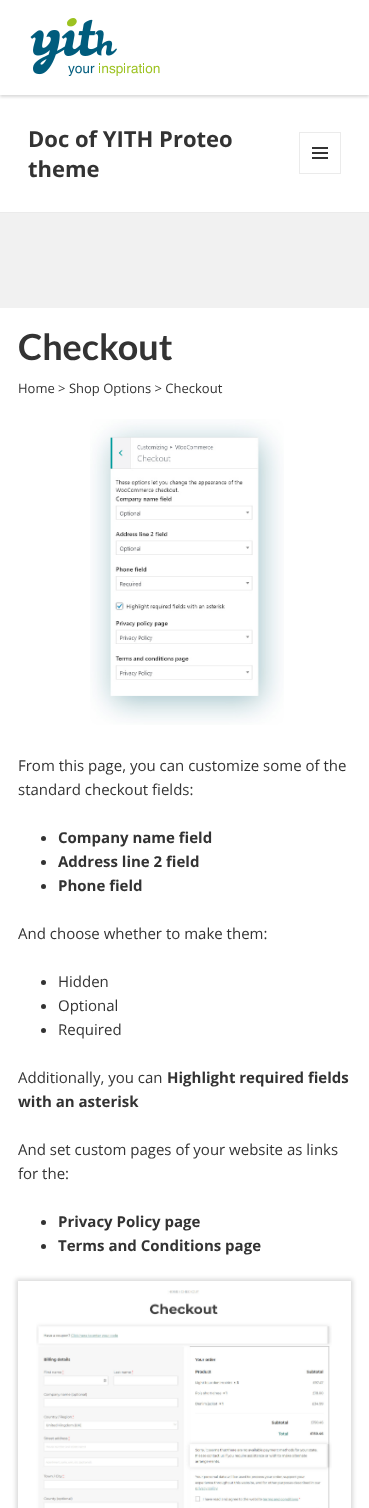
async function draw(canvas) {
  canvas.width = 369;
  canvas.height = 1508;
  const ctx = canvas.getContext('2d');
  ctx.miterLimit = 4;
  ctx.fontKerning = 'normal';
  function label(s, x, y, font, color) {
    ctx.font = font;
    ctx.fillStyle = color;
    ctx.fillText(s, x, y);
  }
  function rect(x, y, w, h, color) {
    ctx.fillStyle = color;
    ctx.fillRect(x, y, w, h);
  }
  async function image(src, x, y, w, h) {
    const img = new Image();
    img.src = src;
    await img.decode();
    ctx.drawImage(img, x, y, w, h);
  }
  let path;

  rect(0, 0, 369, 1508, '#f1f1f1');
  rect(0, 95, 369, 117, '#fff');
  ctx.fillStyle = '#00000026';
  ctx.filter = 'blur(1.5px)';
  ctx.beginPath();
  ctx.rect(0, 2, 369, 95);
  ctx.fill();
  ctx.filter = 'none';
  rect(0, 0, 369, 95, '#fff');
  await image('assets/img1.png', 30, 18, 130, 58);
  rect(0, 212, 369, 1, '#ebebeb');
  label('Doc of YITH Proteo', 28, 147, 'bold 22px Open Sans', '#333');
  label('theme', 28, 177, 'bold 22px Open Sans', '#333');
  ctx.strokeStyle = '#ebebeb';
  ctx.strokeRect(299.5, 132.5, 41, 41);
  await image('assets/img2.png', 312, 147, 16, 12);
  rect(0, 308, 369, 1200, '#fff');
  label('Checkout', 18, 360, 'bold 36px Lato', '#333');
  label('Home > Shop Options > Checkout', 18, 393, '13px Open Sans', '#333');
  await image('assets/img3.png', 90, 419, 194, 306);
  label('From this page, you can customize some of the', 18, 771, '15px Open Sans', '#333');
  label('standard checkout fields:', 18, 795, '15px Open Sans', '#333');
  ctx.beginPath();
  ctx.arc(43.5, 838.5, 2.5, 0, 2 * Math.PI);
  ctx.fill();
  label('Company name field', 58, 843, 'bold 15px Open Sans', '#333');
  ctx.beginPath();
  ctx.arc(43.5, 862.5, 2.5, 0, 2 * Math.PI);
  ctx.fill();
  label('Address line 2 field', 58, 867, 'bold 15px Open Sans', '#333');
  ctx.beginPath();
  ctx.arc(43.5, 886.5, 2.5, 0, 2 * Math.PI);
  ctx.fill();
  label('Phone field', 58, 891, 'bold 15px Open Sans', '#333');
  label('And choose whether to make them:', 18, 939, '15px Open Sans', '#333');
  ctx.beginPath();
  ctx.arc(43.5, 982.5, 2.5, 0, 2 * Math.PI);
  ctx.fill();
  label('Hidden', 58, 987, '15px Open Sans', '#333');
  ctx.beginPath();
  ctx.arc(43.5, 1006.5, 2.5, 0, 2 * Math.PI);
  ctx.fill();
  label('Optional', 58, 1011, '15px Open Sans', '#333');
  ctx.beginPath();
  ctx.arc(43.5, 1030.5, 2.5, 0, 2 * Math.PI);
  ctx.fill();
  label('Required', 58, 1035, '15px Open Sans', '#333');
  label('Additionally, you can', 18, 1083, '15px Open Sans', '#333');
  label('Highlight required fields', 167, 1083, 'bold 15px Open Sans', '#333');
  label('with an asterisk', 18, 1107, 'bold 15px Open Sans', '#333');
  label('And set custom pages of your website as links', 18, 1155, '15px Open Sans', '#333');
  label('for the:', 18, 1179, '15px Open Sans', '#333');
  ctx.beginPath();
  ctx.arc(43.5, 1222.5, 2.5, 0, 2 * Math.PI);
  ctx.fill();
  label('Privacy Policy page', 58, 1227, 'bold 15px Open Sans', '#333');
  ctx.beginPath();
  ctx.arc(43.5, 1246.5, 2.5, 0, 2 * Math.PI);
  ctx.fill();
  label('Terms and Conditions page', 58, 1251, 'bold 15px Open Sans', '#333');
  ctx.save();
  path = new Path2D('M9 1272H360V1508H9ZM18 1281H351V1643H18Z');
  ctx.clip(path, 'evenodd');
  ctx.fillStyle = '#00000026';
  ctx.filter = 'blur(2px)';
  ctx.beginPath();
  ctx.rect(16, 1279, 337, 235);
  ctx.fill();
  ctx.filter = 'none';
  ctx.restore();
  await image('assets/img4.png', 36, 1290, 296, 218);
}

draw(document.querySelector('canvas'));
